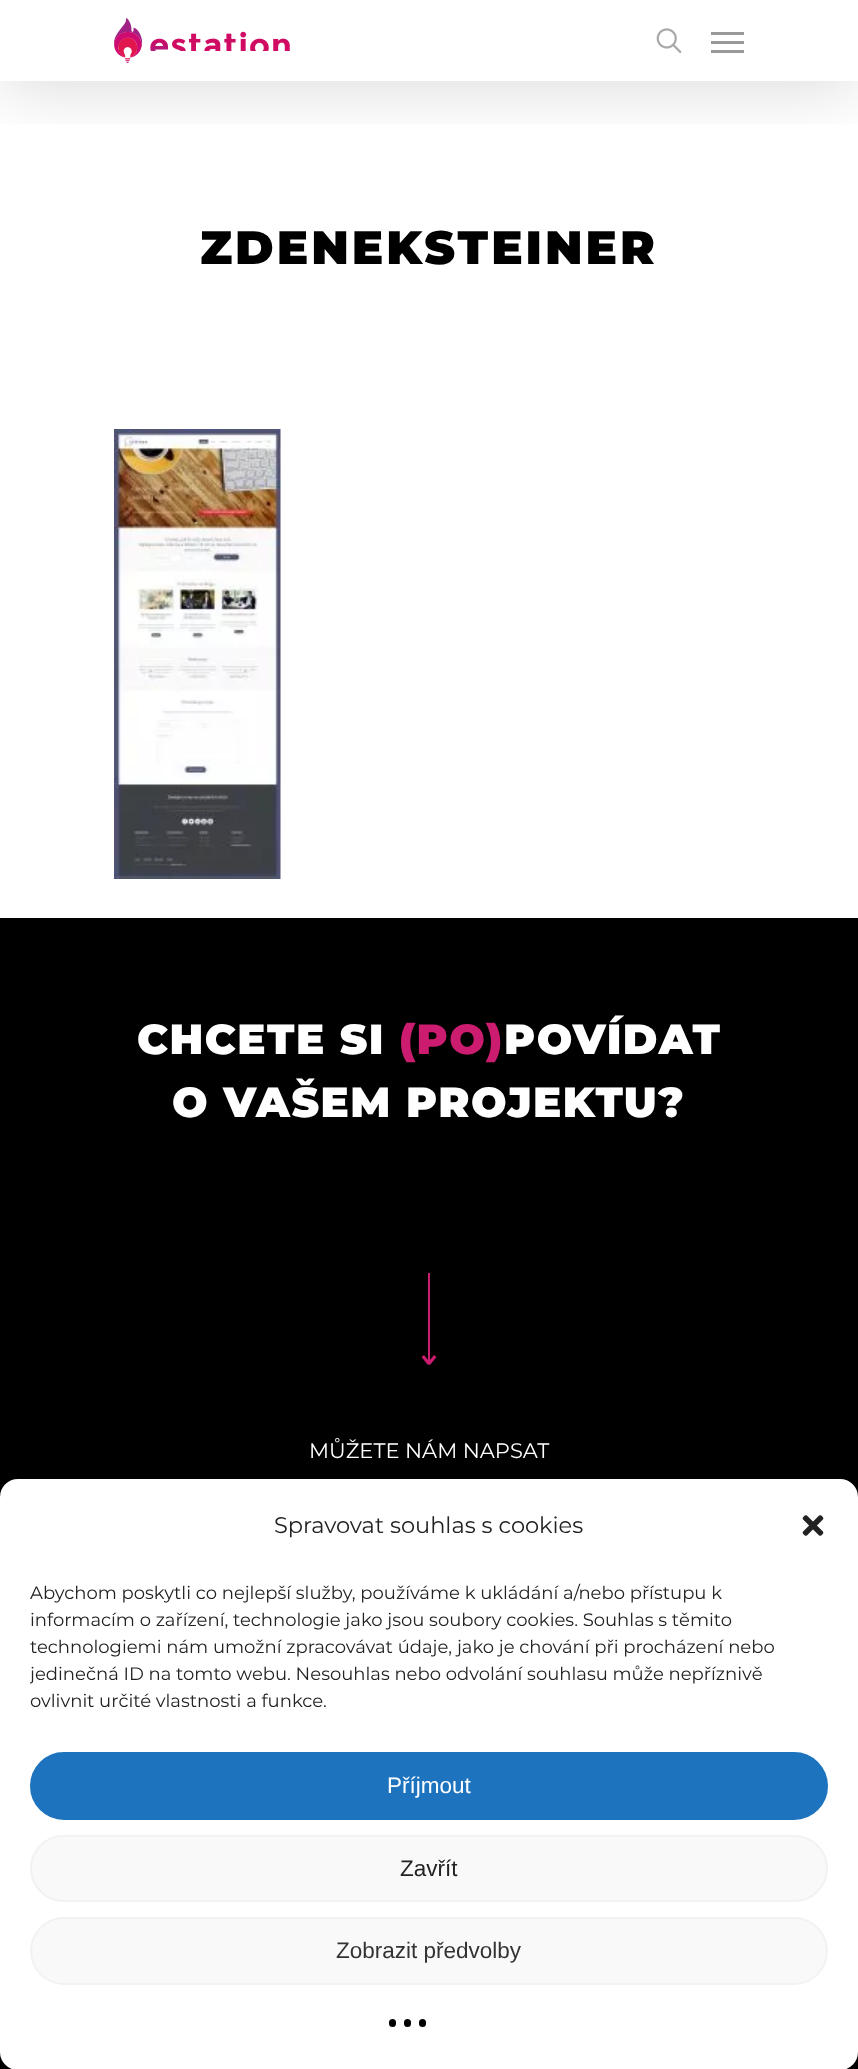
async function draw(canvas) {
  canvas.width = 858;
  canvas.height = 2069;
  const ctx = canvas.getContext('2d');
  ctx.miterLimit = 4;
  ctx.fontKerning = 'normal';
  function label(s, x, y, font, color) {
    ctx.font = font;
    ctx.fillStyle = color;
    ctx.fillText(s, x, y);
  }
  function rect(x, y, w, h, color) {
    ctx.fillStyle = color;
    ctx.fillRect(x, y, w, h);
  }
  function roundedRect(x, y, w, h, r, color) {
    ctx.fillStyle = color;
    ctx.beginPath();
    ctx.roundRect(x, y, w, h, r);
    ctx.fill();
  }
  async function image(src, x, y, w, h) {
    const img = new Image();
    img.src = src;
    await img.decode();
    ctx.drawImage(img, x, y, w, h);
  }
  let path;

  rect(0, 0, 858, 2069, '#fff');
  ctx.save();
  ctx.beginPath();
  ctx.rect(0, 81, 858, 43);
  ctx.clip();
  ctx.fillStyle = '#00000026';
  ctx.filter = 'blur(34px)';
  ctx.beginPath();
  ctx.rect(0, 5, 858, 81);
  ctx.fill();
  ctx.filter = 'none';
  ctx.restore();
  await image('assets/img1.png', 114, 18, 176, 45);
  await image('assets/img2.png', 656, 28, 26, 25);
  rect(711, 32, 33, 3, '#999');
  rect(711, 50, 33, 3, '#999');
  rect(711, 41, 33, 3, '#999');
  ctx.letterSpacing = '3px';
  label('ZDENEKSTEINER', 200, 264, '900 46.75px Montserrat', '#000');
  await image('assets/img3.png', 114, 429, 167, 450);
  rect(0, 918, 858, 1151, '#000');
  ctx.letterSpacing = '1.5px';
  label('CHCETE SI', 137, 1054, '900 42px Montserrat', '#fff');
  label('(PO)', 399, 1054, '900 42px Montserrat', '#cb1c6f');
  label('POVÍDAT', 504, 1054, '900 42px Montserrat', '#fff');
  label('O VAŠEM PROJEKTU?', 172, 1117, '900 42px Montserrat', '#fff');
  rect(428, 1273, 2, 90, '#cb1c6f');
  path = new Path2D('M424 1355L430.5 1363L428 1365L421.5 1357Z');
  ctx.fill(path);
  path = new Path2D('M436.5 1357L430 1365L427.5 1363L434 1355Z');
  ctx.fill(path);
  ctx.letterSpacing = '0px';
  label('MŮŽETE NÁM NAPSAT', 309, 1458, '21px Montserrat', '#fff');
  roundedRect(0, 1479, 858, 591, 18, '#fff');
  label('Spravovat souhlas s cookies', 274, 1533, '22.5px Montserrat', '#222');
  await image('assets/img4.png', 802, 1515, 22, 21);
  label('Abychom poskytli co nejlepší služby, používáme k ukládání a/nebo přístupu k', 30, 1599, '18px Montserrat', '#222');
  label('informacím o zařízení, technologie jako jsou soubory cookies. Souhlas s těmito', 30, 1626, '18px Montserrat', '#222');
  label('technologiemi nám umožní zpracovávat údaje, jako je chování při procházení nebo', 30, 1653, '18px Montserrat', '#222');
  ctx.save();
  ctx.beginPath();
  ctx.rect(30, 1580, 798, 142);
  ctx.clip();
  label('jedinečná ID na tomto webu. Nesouhlas nebo odvolání souhlasu může nepříznivě', 30, 1680, '18px Montserrat', '#222');
  ctx.restore();
  label('ovlivnit určité vlastnosti a funkce.', 30, 1707, '18px Montserrat', '#222');
  ctx.fillStyle = '#1e73be';
  ctx.beginPath();
  ctx.roundRect(31, 1753, 796, 66, 33);
  ctx.fill();
  ctx.strokeStyle = '#1e73be';
  ctx.lineWidth = 2;
  ctx.stroke();
  label('Příjmout', 387, 1793, '22.5px Liberation Sans', '#fff');
  ctx.fillStyle = '#f9f9f9';
  ctx.beginPath();
  ctx.roundRect(31, 1836, 796, 65, 32.5);
  ctx.fill();
  ctx.strokeStyle = '#f2f2f2';
  ctx.stroke();
  label('Zavřít', 400, 1876, '22.5px Liberation Sans', '#222');
  ctx.fillStyle = '#f9f9f9';
  ctx.beginPath();
  ctx.roundRect(31, 1918, 796, 66, 33);
  ctx.fill();
  ctx.stroke();
  label('Zobrazit předvolby', 336, 1958, '22.5px Liberation Sans', '#333');
  roundedRect(389, 2019, 7, 8, 3.5, '#000');
  roundedRect(404, 2019, 7, 8, 3.5, '#000');
  roundedRect(419, 2019, 7, 8, 3.5, '#000');
}

draw(document.querySelector('canvas'));
